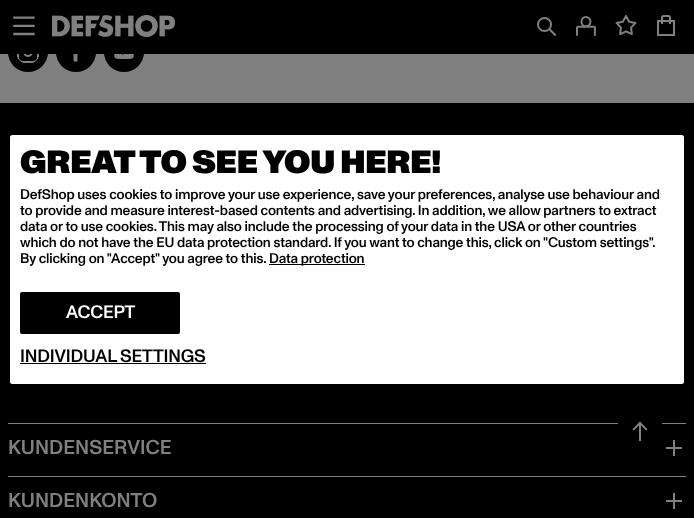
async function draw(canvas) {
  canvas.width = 694;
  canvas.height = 518;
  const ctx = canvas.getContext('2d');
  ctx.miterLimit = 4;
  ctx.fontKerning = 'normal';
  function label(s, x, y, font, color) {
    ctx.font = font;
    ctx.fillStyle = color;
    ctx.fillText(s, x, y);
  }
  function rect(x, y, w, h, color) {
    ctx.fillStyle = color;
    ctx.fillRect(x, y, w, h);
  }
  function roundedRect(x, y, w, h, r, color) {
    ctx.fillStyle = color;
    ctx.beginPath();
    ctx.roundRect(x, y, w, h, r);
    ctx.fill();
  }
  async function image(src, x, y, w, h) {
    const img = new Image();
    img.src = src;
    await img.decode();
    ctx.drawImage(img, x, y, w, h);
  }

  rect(0, 0, 694, 518, '#808080');
  rect(0, 103, 694, 415, '#000');
  roundedRect(10, 135, 674, 249, 2.5, '#fff');
  ctx.letterSpacing = '-0.3px';
  label('GREAT TO SEE YOU HERE!', 20, 173, '900 32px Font', '#000');
  ctx.letterSpacing = '-0.14px';
  label('DefShop uses cookies to improve your use experience, save your preferences, analyse use behaviour and', 20, 199, '500 14px Font', '#000');
  label('to provide and measure interest-based contents and advertising. In addition, we allow partners to extract', 20, 215, '500 14px Font', '#000');
  label('data or to use cookies. This may also include the processing of your data in the USA or other countries', 20, 231, '500 14px Font', '#000');
  label('which do not have the EU data protection standard. If you want to change this, click on "Custom settings".', 20, 247, '500 14px Font', '#000');
  label('By clicking on "Accept" you agree to this.', 20, 263, '500 14px Font', '#000');
  rect(269, 264, 96, 1, '#000');
  label('Data protection', 269, 263, '500 14px Font', '#000');
  roundedRect(20, 292, 160, 42, 2, '#000');
  ctx.letterSpacing = '-0.2px';
  label('ACCEPT', 66, 318, '500 18px Font', '#fff');
  label('INDIVIDUAL SETTINGS', 20, 362, '500 18px Font', '#000');
  rect(20, 363, 186, 1, '#000');
  ctx.beginPath();
  ctx.arc(28, 52, 20, 0, 2 * Math.PI);
  ctx.fill();
  ctx.beginPath();
  ctx.arc(76, 52, 20, 0, 2 * Math.PI);
  ctx.fill();
  ctx.beginPath();
  ctx.arc(124, 52, 20, 0, 2 * Math.PI);
  ctx.fill();
  rect(0, 0, 694, 54, '#000');
  await image('assets/img1.png', 13, 16, 22, 20);
  await image('assets/img2.png', 52, 15, 123, 22);
  await image('assets/img3.png', 537, 17, 20, 20);
  await image('assets/img4.png', 576, 16, 20, 20);
  await image('assets/img5.png', 615, 15, 22, 21);
  await image('assets/img6.png', 657, 15, 18, 21);
  await image('assets/img7.png', 17, 54, 22, 9);
  await image('assets/img8.png', 73, 54, 5, 8);
  await image('assets/img9.png', 114, 54, 20, 5);
  rect(8, 423, 678, 1, '#808080');
  roundedRect(618, 410, 44, 44, 2, '#000');
  await image('assets/img10.png', 632, 421, 16, 20);
  ctx.letterSpacing = '0px';
  label('KUNDENSERVICE', 8, 454, '500 20px Font', '#808080');
  await image('assets/img11.png', 666, 440, 16, 16);
  rect(8, 476, 678, 1, '#808080');
  label('KUNDENKONTO', 8, 507, '500 20px Font', '#808080');
  await image('assets/img11.png', 666, 493, 16, 16);
}

draw(document.querySelector('canvas'));
